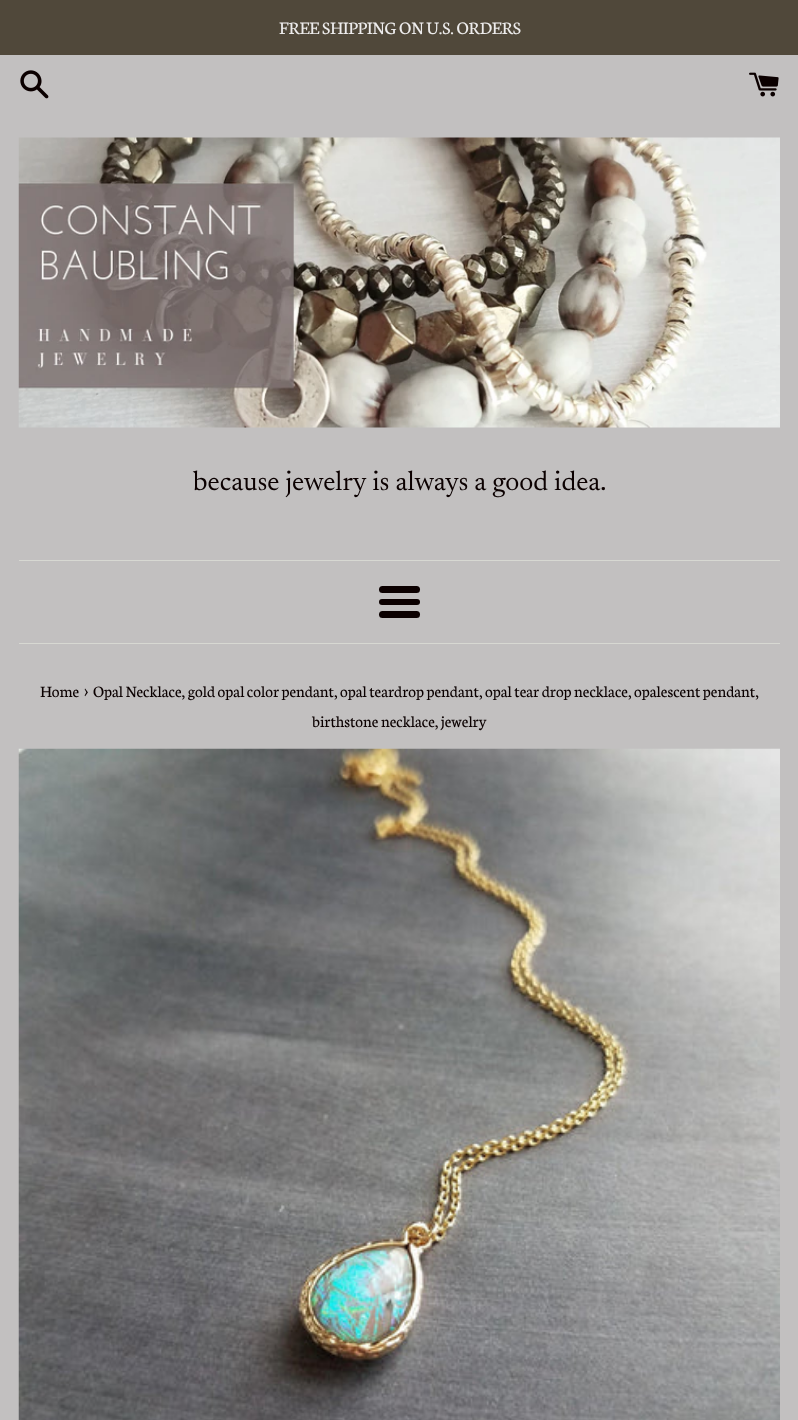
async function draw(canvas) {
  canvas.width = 798;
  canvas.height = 1420;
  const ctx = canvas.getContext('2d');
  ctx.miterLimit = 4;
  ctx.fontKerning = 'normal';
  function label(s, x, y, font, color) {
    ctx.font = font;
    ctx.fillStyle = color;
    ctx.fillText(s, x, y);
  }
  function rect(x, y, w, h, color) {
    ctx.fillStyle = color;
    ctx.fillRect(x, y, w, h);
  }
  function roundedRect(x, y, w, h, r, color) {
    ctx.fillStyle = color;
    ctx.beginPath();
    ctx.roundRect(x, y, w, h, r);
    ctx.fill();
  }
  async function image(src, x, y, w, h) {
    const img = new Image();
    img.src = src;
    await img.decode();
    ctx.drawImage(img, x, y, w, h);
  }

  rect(0, 0, 798, 1420, '#c2c0c0');
  rect(0, 0, 798, 55, '#50483a');
  label('FREE SHIPPING ON U.S. ORDERS', 279, 34, '18.75px Neuton', '#edecec');
  await image('assets/img1.png', 20, 70, 29, 29);
  await image('assets/img2.png', 749, 72, 30, 25);
  await image('assets/img3.png', 18, 137, 762, 291);
  label('because jewelry is always a good idea.', 193, 490, '27.5px Newsreader', '#0b0000');
  rect(19, 560, 761, 1, '#d7d8d2');
  roundedRect(379, 586, 41, 7, 3.5, '#0b0000');
  roundedRect(379, 599, 41, 6, 3, '#0b0000');
  roundedRect(379, 611, 41, 7, 3.5, '#0b0000');
  rect(19, 643, 761, 1, '#d7d8d2');
  label('Home', 40, 697, '16.9px Neuton', '#0b0000');
  label('›', 84, 697, '21px Neuton', '#0b0000');
  label('Opal Necklace, gold opal color pendant, opal teardrop pendant, opal tear drop necklace, opalescent pendant,', 93, 697, '16.9px Neuton', '#0b0000');
  label('birthstone necklace, jewelry', 312, 727, '16.9px Neuton', '#0b0000');
  await image('assets/img4.png', 18, 748, 762, 672);
}

draw(document.querySelector('canvas'));
